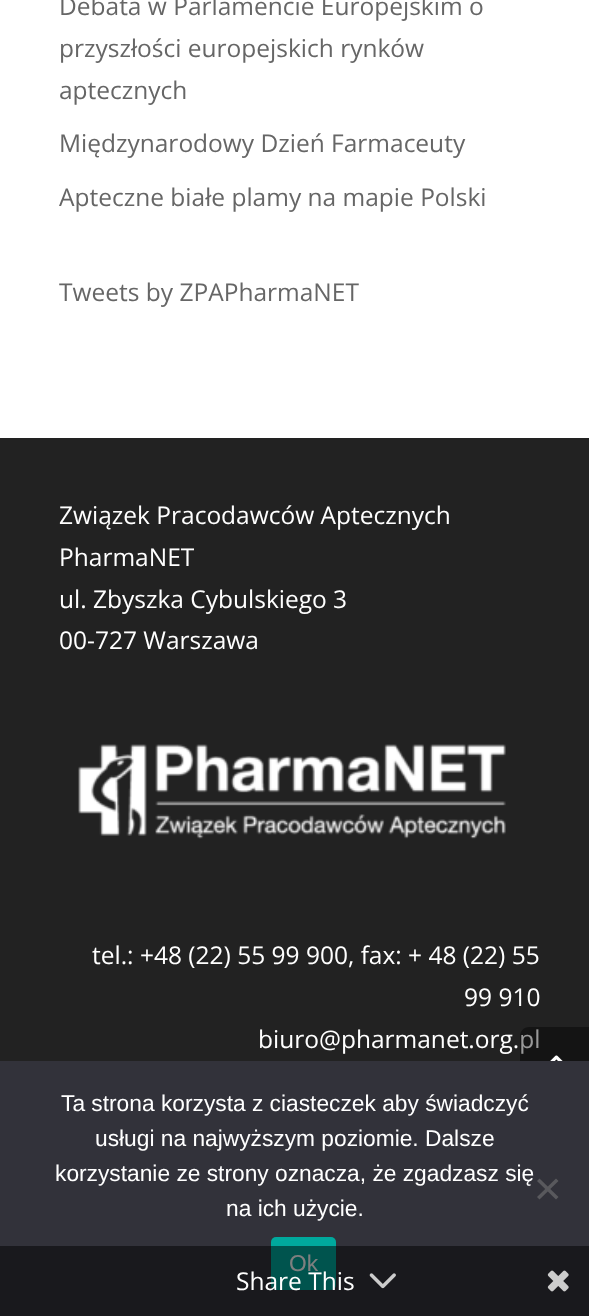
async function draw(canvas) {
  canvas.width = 589;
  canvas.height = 1316;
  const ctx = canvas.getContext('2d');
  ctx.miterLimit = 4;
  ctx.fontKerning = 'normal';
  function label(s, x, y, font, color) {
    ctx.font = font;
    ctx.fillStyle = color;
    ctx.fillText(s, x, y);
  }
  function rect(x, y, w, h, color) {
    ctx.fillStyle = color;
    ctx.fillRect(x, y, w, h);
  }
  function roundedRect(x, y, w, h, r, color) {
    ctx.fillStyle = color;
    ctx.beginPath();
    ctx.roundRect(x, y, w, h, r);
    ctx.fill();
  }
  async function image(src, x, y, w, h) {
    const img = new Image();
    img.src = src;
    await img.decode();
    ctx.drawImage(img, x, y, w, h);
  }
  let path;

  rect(0, 0, 589, 1316, '#fff');
  label('Debata w Parlamencie Europejskim o', 59, 15, '24.5px Open Sans', '#666');
  label('przyszłości europejskich rynków', 59, 57, '24.5px Open Sans', '#666');
  label('aptecznych', 59, 99, '24.5px Open Sans', '#666');
  label('Międzynarodowy Dzień Farmaceuty', 59, 152, '24.5px Open Sans', '#666');
  label('Apteczne białe plamy na mapie Polski', 59, 206, '24.5px Open Sans', '#666');
  label('Tweets by ZPAPharmaNET', 59, 301, '24.5px Open Sans', '#666');
  rect(0, 438, 589, 623, '#222');
  label('Związek Pracodawców Aptecznych', 59, 524, '24.5px Open Sans', '#fff');
  label('PharmaNET', 59, 566, '24.5px Open Sans', '#fff');
  label('ul. Zbyszka Cybulskiego 3', 59, 608, '24.5px Open Sans', '#fff');
  label('00-727 Warszawa', 59, 649, '24.5px Open Sans', '#fff');
  await image('assets/img1.png', 78, 744, 428, 95);
  label('tel.: +48 (22) 55 99 900, fax: + 48 (22) 55', 92, 964, '24.5px Open Sans', '#fff');
  label('99 910', 464, 1006, '24.5px Open Sans', '#fff');
  label('biuro@pharmanet.org.pl', 258, 1048, '24.5px Open Sans', '#fff');
  ctx.fillStyle = '#00000066';
  path = new Path2D('M529 1027H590V1097H529C524 1097 520 1093 520 1088V1036C520 1031 524 1027 529 1027Z');
  ctx.fill(path);
  await image('assets/img2.png', 550, 1055, 13, 6);
  rect(0, 1061, 589, 255, '#32323a');
  label('Ta strona korzysta z ciasteczek aby świadczyć', 61, 1111, '22.75px Liberation Sans', '#fff');
  label('usługi na najwyższym poziomie. Dalsze', 95, 1146, '22.75px Liberation Sans', '#fff');
  label('korzystanie ze strony oznacza, że zgadzasz się', 55, 1181, '22.75px Liberation Sans', '#fff');
  label('na ich użycie.', 226, 1216, '22.75px Liberation Sans', '#fff');
  ctx.fillStyle = '#59595d';
  path = new Path2D('M556 1178.5L558.5 1181L539.5 1199.5L537 1197Z');
  ctx.fill(path);
  path = new Path2D('M537 1181L539.5 1178.5L558.5 1197L556 1199.5Z');
  ctx.fill(path);
  roundedRect(271, 1237, 65, 53, 5, '#00a99d');
  label('Ok', 289, 1271, '22.75px Liberation Sans', '#fff');
  rect(0, 1246, 589, 70, '#00000080');
  label('Share This', 236, 1290, '24.5px Open Sans', '#fff');
  await image('assets/img3.png', 369, 1273, 27, 16);
  await image('assets/img4.png', 547, 1270, 22, 22);
}

draw(document.querySelector('canvas'));
